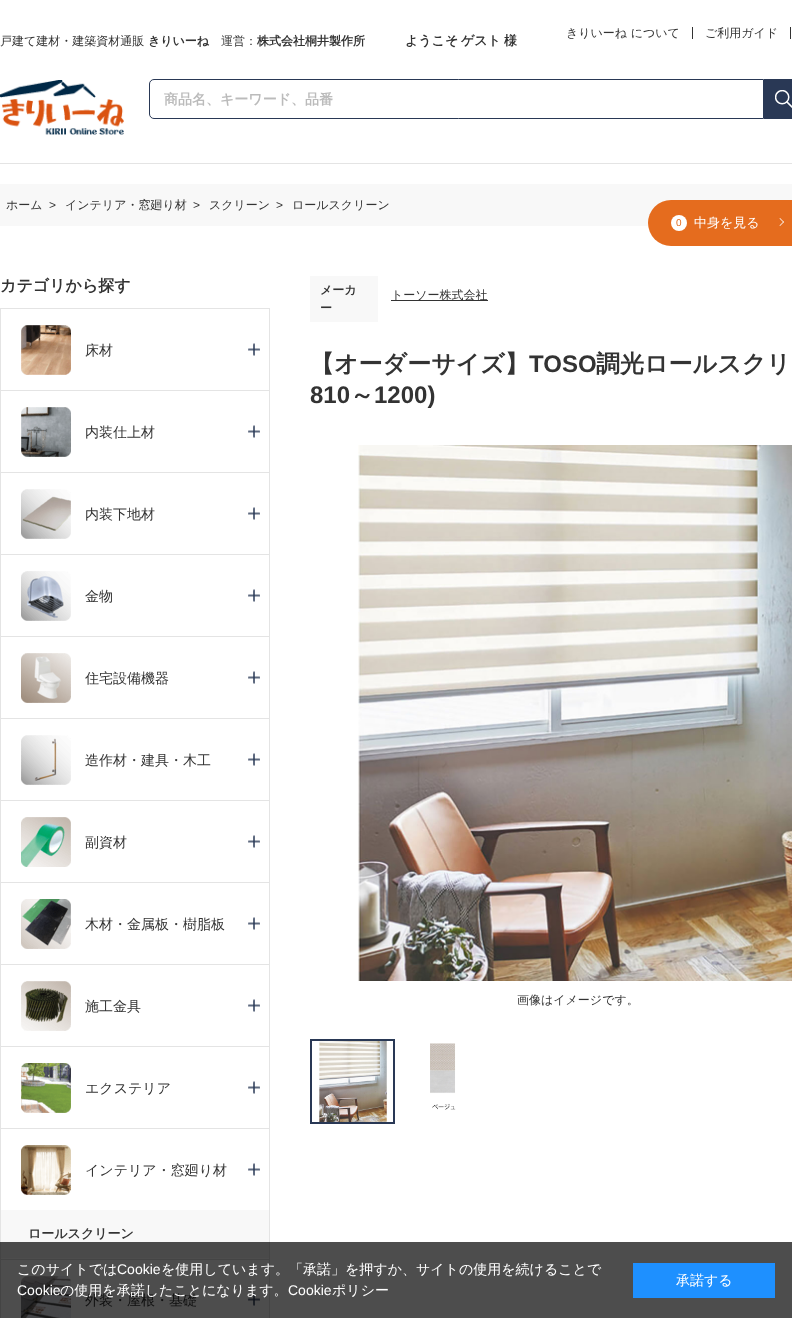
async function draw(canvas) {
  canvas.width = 792;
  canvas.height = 1318;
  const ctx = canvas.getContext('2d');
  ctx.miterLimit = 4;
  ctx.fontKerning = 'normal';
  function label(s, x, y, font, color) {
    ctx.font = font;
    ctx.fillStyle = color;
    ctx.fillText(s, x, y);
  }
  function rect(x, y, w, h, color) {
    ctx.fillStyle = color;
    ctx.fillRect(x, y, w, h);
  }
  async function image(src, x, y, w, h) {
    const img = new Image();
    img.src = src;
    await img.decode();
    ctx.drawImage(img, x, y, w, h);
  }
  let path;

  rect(0, 0, 792, 1318, '#fff');
  rect(1, 1242, 791, 76, '#4d4d4d');
  label('戸建て建材・建築資材通販', 0, 45, '500 12px WenQuanYi Zen Hei', '#333');
  label('きりいーね', 148, 45, 'bold 12px WenQuanYi Zen Hei', '#333');
  label('運営：', 221, 45, '500 12px WenQuanYi Zen Hei', '#333');
  label('株式会社桐井製作所', 257, 45, 'bold 12px WenQuanYi Zen Hei', '#333');
  label('ようこそ', 405, 45, 'bold 13px WenQuanYi Zen Hei', '#333');
  label('ゲスト', 461, 45, 'bold 13px WenQuanYi Zen Hei', '#333');
  label('様', 504, 45, 'bold 13px WenQuanYi Zen Hei', '#333');
  label('きりいーね について', 566, 37, '500 12px WenQuanYi Zen Hei', '#333');
  rect(790, 27, 1, 12, '#333');
  rect(692, 27, 1, 12, '#333');
  label('ご利用ガイド', 705, 37, '500 12px WenQuanYi Zen Hei', '#333');
  await image('assets/img1.png', 0, 80, 124, 55);
  ctx.beginPath();
  ctx.roundRect(149.5, 79.5, 614, 39, [4.5, 0, 0, 4.5]);
  ctx.strokeStyle = '#293855';
  ctx.stroke();
  label('商品名、キーワード、品番', 164, 104, 'bold 14px WenQuanYi Zen Hei', '#bbb');
  rect(764, 79, 28, 40, '#293855');
  await image('assets/img2.png', 775, 90, 17, 18);
  rect(0, 163, 792, 1, '#e4e4e4');
  rect(0, 184, 792, 42, '#f8f8f8');
  label('ホーム', 6, 209, '500 12px WenQuanYi Zen Hei', '#333');
  label('>', 49, 209, '12px Liberation Sans', '#333');
  label('インテリア・窓廻り材', 65, 209, '500 12px WenQuanYi Zen Hei', '#333');
  label('>', 193, 209, '12px Liberation Sans', '#333');
  label('スクリーン', 209, 209, '500 12px WenQuanYi Zen Hei', '#333');
  label('>', 276, 209, '12px Liberation Sans', '#333');
  label('ロールスクリーン', 292, 209, '500 12px WenQuanYi Zen Hei', '#333');
  ctx.fillStyle = '#e56c1e';
  ctx.beginPath();
  ctx.roundRect(648, 200, 144, 46, [23, 0, 0, 23]);
  ctx.fill();
  ctx.fillStyle = '#fff';
  ctx.beginPath();
  ctx.arc(679, 223, 8, 0, 2 * Math.PI);
  ctx.fill();
  label('0', 676, 226, '10px Liberation Sans', '#e56c1e');
  label('中身を見る', 694, 227, '500 13px WenQuanYi Zen Hei', '#fff');
  path = new Path2D('M779.5 218.5L780 218L784 222L783.5 222.5Z');
  ctx.fill(path);
  path = new Path2D('M779.5 225.5L783.5 221.5L784 222L780 226Z');
  ctx.fill(path);
  label('カテゴリから探す', 0, 291, 'bold 16px WenQuanYi Zen Hei', '#333');
  rect(269, 308, 1, 934, '#e4e4e4');
  rect(269, 1242, 1, 76, '#444');
  rect(0, 308, 1, 934, '#e4e4e4');
  rect(0, 1242, 1, 76, '#444');
  rect(1, 308, 268, 1, '#e4e4e4');
  await image('assets/img3.png', 21, 325, 50, 50);
  label('床材', 85, 355, '500 14px WenQuanYi Zen Hei', '#333');
  await image('assets/img4.png', 248, 343, 12, 13);
  rect(1, 390, 268, 1, '#e4e4e4');
  await image('assets/img5.png', 21, 407, 50, 50);
  label('内装仕上材', 85, 437, '500 14px WenQuanYi Zen Hei', '#333');
  await image('assets/img4.png', 248, 425, 12, 13);
  rect(1, 472, 268, 1, '#e4e4e4');
  await image('assets/img6.png', 21, 489, 50, 50);
  label('内装下地材', 85, 519, '500 14px WenQuanYi Zen Hei', '#333');
  await image('assets/img4.png', 248, 507, 12, 13);
  rect(1, 554, 268, 1, '#e4e4e4');
  await image('assets/img7.png', 21, 571, 50, 50);
  label('金物', 85, 601, '500 14px WenQuanYi Zen Hei', '#333');
  await image('assets/img4.png', 248, 589, 12, 13);
  rect(1, 636, 268, 1, '#e4e4e4');
  await image('assets/img8.png', 21, 653, 50, 50);
  label('住宅設備機器', 85, 683, '500 14px WenQuanYi Zen Hei', '#333');
  await image('assets/img4.png', 248, 671, 12, 13);
  rect(1, 718, 268, 1, '#e4e4e4');
  await image('assets/img9.png', 21, 735, 50, 50);
  label('造作材・建具・木工', 85, 765, '500 14px WenQuanYi Zen Hei', '#333');
  await image('assets/img4.png', 248, 753, 12, 13);
  rect(1, 800, 268, 1, '#e4e4e4');
  await image('assets/img10.png', 21, 817, 50, 50);
  label('副資材', 85, 847, '500 14px WenQuanYi Zen Hei', '#333');
  await image('assets/img4.png', 248, 835, 12, 13);
  rect(1, 882, 268, 1, '#e4e4e4');
  await image('assets/img11.png', 21, 899, 50, 50);
  label('木材・金属板・樹脂板', 85, 929, '500 14px WenQuanYi Zen Hei', '#333');
  await image('assets/img4.png', 248, 917, 12, 13);
  rect(1, 964, 268, 1, '#e4e4e4');
  await image('assets/img12.png', 21, 981, 50, 50);
  label('施工金具', 85, 1011, '500 14px WenQuanYi Zen Hei', '#333');
  await image('assets/img4.png', 248, 999, 12, 13);
  rect(1, 1046, 268, 1, '#e4e4e4');
  await image('assets/img13.png', 21, 1063, 50, 50);
  label('エクステリア', 85, 1093, '500 14px WenQuanYi Zen Hei', '#333');
  await image('assets/img4.png', 248, 1081, 12, 13);
  rect(1, 1128, 268, 1, '#e4e4e4');
  await image('assets/img14.png', 21, 1145, 50, 50);
  label('インテリア・窓廻り材', 85, 1175, '500 14px WenQuanYi Zen Hei', '#333');
  await image('assets/img4.png', 248, 1163, 12, 13);
  rect(1, 1210, 268, 32, '#f8f8f8');
  rect(1, 1242, 268, 16, '#4a4a4a');
  label('ロールスクリーン', 28, 1238, 'bold 13px WenQuanYi Zen Hei', '#333');
  rect(1, 1259, 268, 1, '#444');
  await image('assets/img15.png', 21, 1276, 50, 42);
  label('外装・屋根・基礎', 85, 1305, '500 14px WenQuanYi Zen Hei', '#0f0f0f');
  await image('assets/img16.png', 248, 1293, 12, 13);
  rect(310, 276, 68, 46, '#f8f8f8');
  label('メーカ', 320, 294, 'bold 12px WenQuanYi Zen Hei', '#333');
  label('ー', 320, 312, 'bold 12px WenQuanYi Zen Hei', '#333');
  rect(391, 300, 97, 1, '#333');
  label('トーソー株式会社', 391, 299, '500 12px WenQuanYi Zen Hei', '#333');
  label('【オーダーサイズ】', 310, 372, 'bold 24px WenQuanYi Zen Hei', '#333');
  label('TOSO', 529, 372, 'bold 24px Liberation Sans', '#333');
  label('調光ロールスクリ', 596, 372, 'bold 24px WenQuanYi Zen Hei', '#333');
  label('810', 310, 403, 'bold 24px Liberation Sans', '#333');
  label('～', 350, 403, 'bold 24px WenQuanYi Zen Hei', '#333');
  label('1200)', 374, 403, 'bold 24px Liberation Sans', '#333');
  await image('assets/img17.png', 358, 445, 434, 536);
  label('画像はイメージです。', 517, 1004, '500 12px WenQuanYi Zen Hei', '#333');
  ctx.lineWidth = 2;
  ctx.strokeRect(311, 1040, 83, 83);
  await image('assets/img18.png', 319, 1041, 68, 81);
  await image('assets/img19.png', 430, 1043, 26, 67);
  label('このサイトでは', 17, 1274, '500 14px WenQuanYi Zen Hei', '#fff');
  label('Cookie', 117, 1274, '14px Liberation Sans', '#fff');
  label('を使用しています。「承諾」を押すか、サイトの使用を続けることで', 161, 1274, '500 14px WenQuanYi Zen Hei', '#fff');
  label('Cookie', 17, 1295, '14px Liberation Sans', '#fff');
  label('の使用を承諾したことになります。', 60, 1295, '500 14px WenQuanYi Zen Hei', '#fff');
  label('Cookie', 288, 1295, '14px Liberation Sans', '#fff');
  label('ポリシー', 332, 1295, '500 14px WenQuanYi Zen Hei', '#fff');
  rect(633, 1263, 142, 35, '#1e90ff');
  label('承諾する', 676, 1285, '500 14px WenQuanYi Zen Hei', '#fff');
}

draw(document.querySelector('canvas'));
